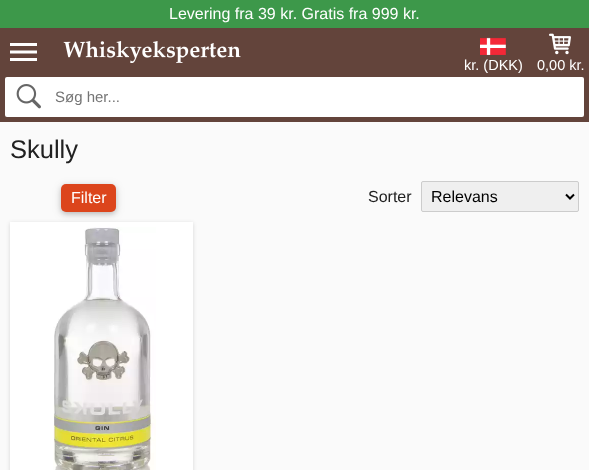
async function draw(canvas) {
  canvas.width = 589;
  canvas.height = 470;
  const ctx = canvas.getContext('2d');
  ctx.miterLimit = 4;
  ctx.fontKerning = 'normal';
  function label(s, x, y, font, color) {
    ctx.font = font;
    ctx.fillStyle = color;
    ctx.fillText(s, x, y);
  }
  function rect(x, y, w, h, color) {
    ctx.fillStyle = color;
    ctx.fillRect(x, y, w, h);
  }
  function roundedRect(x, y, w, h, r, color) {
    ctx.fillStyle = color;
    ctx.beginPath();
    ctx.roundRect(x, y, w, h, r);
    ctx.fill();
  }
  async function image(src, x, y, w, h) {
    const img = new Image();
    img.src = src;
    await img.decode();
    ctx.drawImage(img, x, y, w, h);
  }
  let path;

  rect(0, 0, 589, 470, '#fafafa');
  rect(0, 0, 589, 28, '#3d984a');
  label('Levering fra 39 kr. Gratis fra 999 kr.', 169, 19, '16px Liberation Sans', '#fff');
  rect(0, 28, 589, 94, '#63443b');
  await image('assets/img1.png', 480, 37, 26, 18);
  label('kr. (DKK)', 464, 70, '14.5px Liberation Sans', '#fff');
  await image('assets/img2.png', 549, 33, 22, 22);
  label('0,00 kr.', 537, 70, '14.5px Liberation Sans', '#fff');
  await image('assets/img3.png', 10, 43, 27, 18);
  await image('assets/img4.png', 63, 41, 178, 22);
  roundedRect(5, 77, 579, 40, 2, '#fff');
  await image('assets/img5.png', 16, 84, 25, 25);
  label('Søg her...', 55, 102, '15px Liberation Sans', '#757575');
  label('Skully', 10, 158, '25.5px Liberation Sans', '#212121');
  ctx.fillStyle = '#0000001f';
  ctx.filter = 'blur(5px)';
  ctx.beginPath();
  ctx.roundRect(61, 186, 55, 28, 5);
  ctx.fill();
  ctx.filter = 'none';
  ctx.fillStyle = '#00000029';
  ctx.filter = 'blur(2.5px)';
  ctx.beginPath();
  ctx.roundRect(61, 186, 55, 28, 5);
  ctx.fill();
  ctx.filter = 'none';
  roundedRect(61, 184, 55, 28, 5, '#dc451c');
  label('Filter', 71, 203, '16px Liberation Sans', '#fff');
  label('Sorter', 368, 202, '16px Liberation Sans', '#212121');
  ctx.fillStyle = '#efefef';
  ctx.beginPath();
  ctx.roundRect(421.5, 181.5, 157, 30, 1.5);
  ctx.fill();
  ctx.strokeStyle = '#ccc';
  ctx.stroke();
  path = new Path2D('M566 194.5L570 198.5L574 194.5');
  ctx.strokeStyle = '#000';
  ctx.lineWidth = 2;
  ctx.stroke(path);
  label('Relevans', 431, 202, '16px Liberation Sans', '#000');
  ctx.fillStyle = '#00000024';
  ctx.filter = 'blur(2px)';
  ctx.beginPath();
  ctx.rect(10, 223, 183, 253);
  ctx.fill();
  ctx.filter = 'none';
  rect(10, 222, 183, 248, '#fff');
  await image('assets/img6.png', 53, 227, 103, 243);
}

draw(document.querySelector('canvas'));
